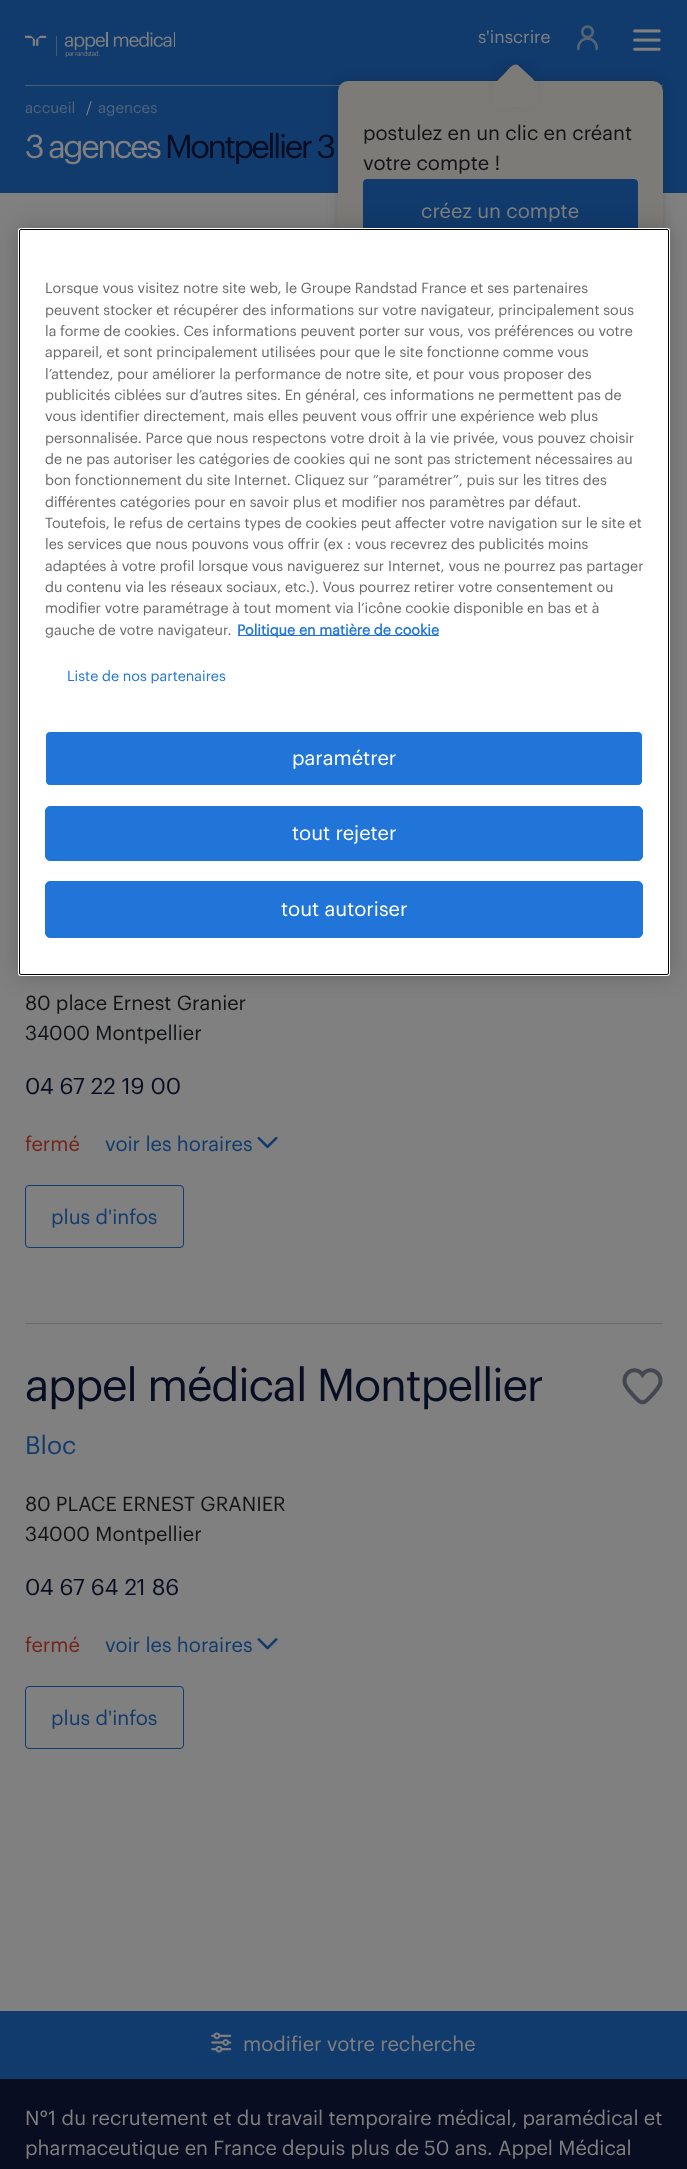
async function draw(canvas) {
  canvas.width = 687;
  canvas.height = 2169;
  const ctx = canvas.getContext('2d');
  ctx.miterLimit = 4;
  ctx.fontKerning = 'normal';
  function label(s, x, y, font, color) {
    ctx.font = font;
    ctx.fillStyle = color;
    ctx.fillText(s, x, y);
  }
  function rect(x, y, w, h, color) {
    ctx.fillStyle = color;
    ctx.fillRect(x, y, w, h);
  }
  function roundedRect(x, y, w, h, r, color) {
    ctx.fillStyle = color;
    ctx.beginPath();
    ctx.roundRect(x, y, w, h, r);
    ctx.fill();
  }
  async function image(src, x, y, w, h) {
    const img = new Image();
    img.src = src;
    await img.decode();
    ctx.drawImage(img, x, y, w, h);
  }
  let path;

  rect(0, 0, 687, 2169, '#808080');
  rect(0, 0, 687, 193, '#113b6d');
  label('accueil', 25, 113, '15px Graphik', '#536478');
  label('/', 86, 113, '15px Graphik', '#808080');
  label('agences', 98, 113, '15px Graphik', '#536478');
  rect(25, 85, 638, 1, '#485d76');
  await image('assets/img1.png', 25, 31, 150, 26);
  label('s\'inscrire', 478, 43, '17.5px Graphik', '#808080');
  await image('assets/img2.png', 577, 25, 21, 26);
  await image('assets/img3.png', 633, 29, 28, 22);
  ctx.fillStyle = '#00000026';
  ctx.filter = 'blur(6px)';
  ctx.beginPath();
  ctx.roundRect(338, 81, 325, 198, 10);
  ctx.fill();
  ctx.filter = 'none';
  roundedRect(338, 81, 325, 198, 10, '#7c7b78');
  ctx.fillStyle = '#00000026';
  ctx.filter = 'blur(6.5px)';
  ctx.beginPath();
  ctx.roundRect(500, 69, 31, 31, 5);
  ctx.fill();
  ctx.filter = 'none';
  ctx.fillStyle = '#7c7b78';
  path = new Path2D('M519 66L532 78C540 86 534 88 527 95C517 106 517 108 507 98C493 84 491 87 505 73C508 70 514 61 519 66Z');
  ctx.fill(path);
  rect(493, 81, 45, 26, '#7c7b78');
  label('postulez en un clic en créant', 363, 140, '20px Graphik', '#111315');
  label('votre compte !', 363, 170, '20px Graphik', '#111315');
  ctx.fillStyle = '#113b6d';
  ctx.beginPath();
  ctx.roundRect(363.5, 179.5, 274, 61, 3.5);
  ctx.fill();
  ctx.strokeStyle = '#113b6d';
  ctx.stroke();
  label('créez un compte', 421, 218, '20px Graphik', '#808080');
  ctx.letterSpacing = '-2.5px';
  label('3 agences', 25, 158, '32.5px Graphik', '#808080');
  label('Montpellier 3', 165, 158, '32.5px Graphik', '#080d21');
  rect(25, 1323, 638, 1, '#6c6c6c');
  ctx.letterSpacing = '0px';
  label('80 place Ernest Granier', 25, 1010, '20px Graphik', '#111315');
  label('34000 Montpellier', 25, 1040, '20px Graphik', '#111315');
  label('04 67 22 19 00', 25, 1094, '22.5px Graphik', '#080d21');
  label('fermé', 25, 1151, '20px Graphik', '#74231b');
  label('voir les horaires', 105, 1151, '20px Graphik', '#113b6d');
  await image('assets/img4.png', 257, 1136, 21, 13);
  ctx.beginPath();
  ctx.roundRect(25.5, 1185.5, 158, 62, 3.5);
  ctx.stroke();
  label('plus d\'infos', 51, 1224, '20px Graphik', '#113b6d');
  ctx.letterSpacing = '-1.25px';
  label('appel médical Montpellier', 25, 1401, '45px Graphik', '#080d21');
  await image('assets/img5.png', 622, 1368, 41, 37);
  ctx.letterSpacing = '0px';
  label('Bloc', 25, 1454, '25px Graphik', '#113b6d');
  label('80 PLACE ERNEST GRANIER', 25, 1511, '20px Graphik', '#111315');
  label('34000 Montpellier', 25, 1541, '20px Graphik', '#111315');
  label('04 67 64 21 86', 25, 1595, '22.5px Graphik', '#080d21');
  label('fermé', 25, 1652, '20px Graphik', '#74231b');
  label('voir les horaires', 105, 1652, '20px Graphik', '#113b6d');
  await image('assets/img6.png', 257, 1638, 21, 12);
  ctx.beginPath();
  ctx.roundRect(25.5, 1686.5, 158, 62, 3.5);
  ctx.stroke();
  label('plus d\'infos', 51, 1725, '20px Graphik', '#113b6d');
  rect(0, 2011, 687, 68, '#113b6d');
  await image('assets/img7.png', 211, 2032, 21, 21);
  label('modifier votre recherche', 243, 2051, '20px Graphik', '#808080');
  rect(0, 2079, 687, 90, '#080d21');
  label('N°1 du recrutement et du travail temporaire médical, paramédical et', 25, 2125, '20px Graphik', '#808080');
  label('pharmaceutique en France depuis plus de 50 ans. Appel Médical', 25, 2155, '20px Graphik', '#808080');
  ctx.fillStyle = '#00000033';
  ctx.filter = 'blur(11px)';
  ctx.beginPath();
  ctx.roundRect(18, 228, 652, 748, 3);
  ctx.fill();
  ctx.filter = 'none';
  roundedRect(18, 228, 652, 748, 3, '#fff');
  ctx.beginPath();
  ctx.roundRect(19.5, 229.5, 649, 745, 1.5);
  ctx.strokeStyle = '#000';
  ctx.stroke();
  label('Lorsque vous visitez notre site web, le Groupe Randstad France et ses partenaires', 45, 293, '14.25px Graphik', '#696969');
  label('peuvent stocker et récupérer des informations sur votre navigateur, principalement sous', 45, 315, '14.25px Graphik', '#696969');
  label('la forme de cookies. Ces informations peuvent porter sur vous, vos préférences ou votre', 45, 336, '14.25px Graphik', '#696969');
  label('appareil, et sont principalement utilisées pour que le site fonctionne comme vous', 45, 357, '14.25px Graphik', '#696969');
  label('l’attendez, pour améliorer la performance de notre site, et pour vous proposer des', 45, 379, '14.25px Graphik', '#696969');
  label('publicités ciblées sur d’autres sites. En général, ces informations ne permettent pas de', 45, 400, '14.25px Graphik', '#696969');
  label('vous identifier directement, mais elles peuvent vous offrir une expérience web plus', 45, 421, '14.25px Graphik', '#696969');
  label('personnalisée. Parce que nous respectons votre droit à la vie privée, vous pouvez choisir', 45, 443, '14.25px Graphik', '#696969');
  label('de ne pas autoriser les catégories de cookies qui ne sont pas strictement nécessaires au', 45, 464, '14.25px Graphik', '#696969');
  label('bon fonctionnement du site Internet. Cliquez sur “paramétrer”, puis sur les titres des', 45, 485, '14.25px Graphik', '#696969');
  label('différentes catégories pour en savoir plus et modifier nos paramètres par défaut.', 45, 507, '14.25px Graphik', '#696969');
  label('Toutefois, le refus de certains types de cookies peut affecter votre navigation sur le site et', 45, 528, '14.25px Graphik', '#696969');
  label('les services que nous pouvons vous offrir (ex : vous recevrez des publicités moins', 45, 549, '14.25px Graphik', '#696969');
  label('adaptées à votre profil lorsque vous naviguerez sur Internet, vous ne pourrez pas partager', 45, 571, '14.25px Graphik', '#696969');
  label('du contenu via les réseaux sociaux, etc.). Vous pourrez retirer votre consentement ou', 45, 592, '14.25px Graphik', '#696969');
  label('modifier votre paramétrage à tout moment via l’icône cookie disponible en bas et à', 45, 613, '14.25px Graphik', '#696969');
  label('gauche de votre navigateur.', 45, 635, '14.25px Graphik', '#696969');
  rect(238, 635, 201, 1, '#2175d9');
  label('Politique en matière de cookie', 237, 635, 'bold 14.25px Graphik', '#2175d9');
  label('Liste de nos partenaires', 67, 681, '14.25px Graphik', '#2175d9');
  ctx.beginPath();
  ctx.roundRect(45.5, 731.5, 597, 54, 4.5);
  ctx.fill();
  ctx.strokeStyle = '#fff';
  ctx.stroke();
  label('paramétrer', 292, 765, '20px Graphik', '#fff');
  ctx.fillStyle = '#2175d9';
  ctx.beginPath();
  ctx.roundRect(45.5, 806.5, 597, 54, 4.5);
  ctx.fill();
  ctx.strokeStyle = '#2175d9';
  ctx.stroke();
  label('tout rejeter', 292, 840, '20px Graphik', '#fff');
  ctx.fillStyle = '#2175d9';
  ctx.beginPath();
  ctx.roundRect(45.5, 881.5, 597, 56, 4.5);
  ctx.fill();
  ctx.stroke();
  label('tout autoriser', 281, 916, '20px Graphik', '#fff');
}

draw(document.querySelector('canvas'));
